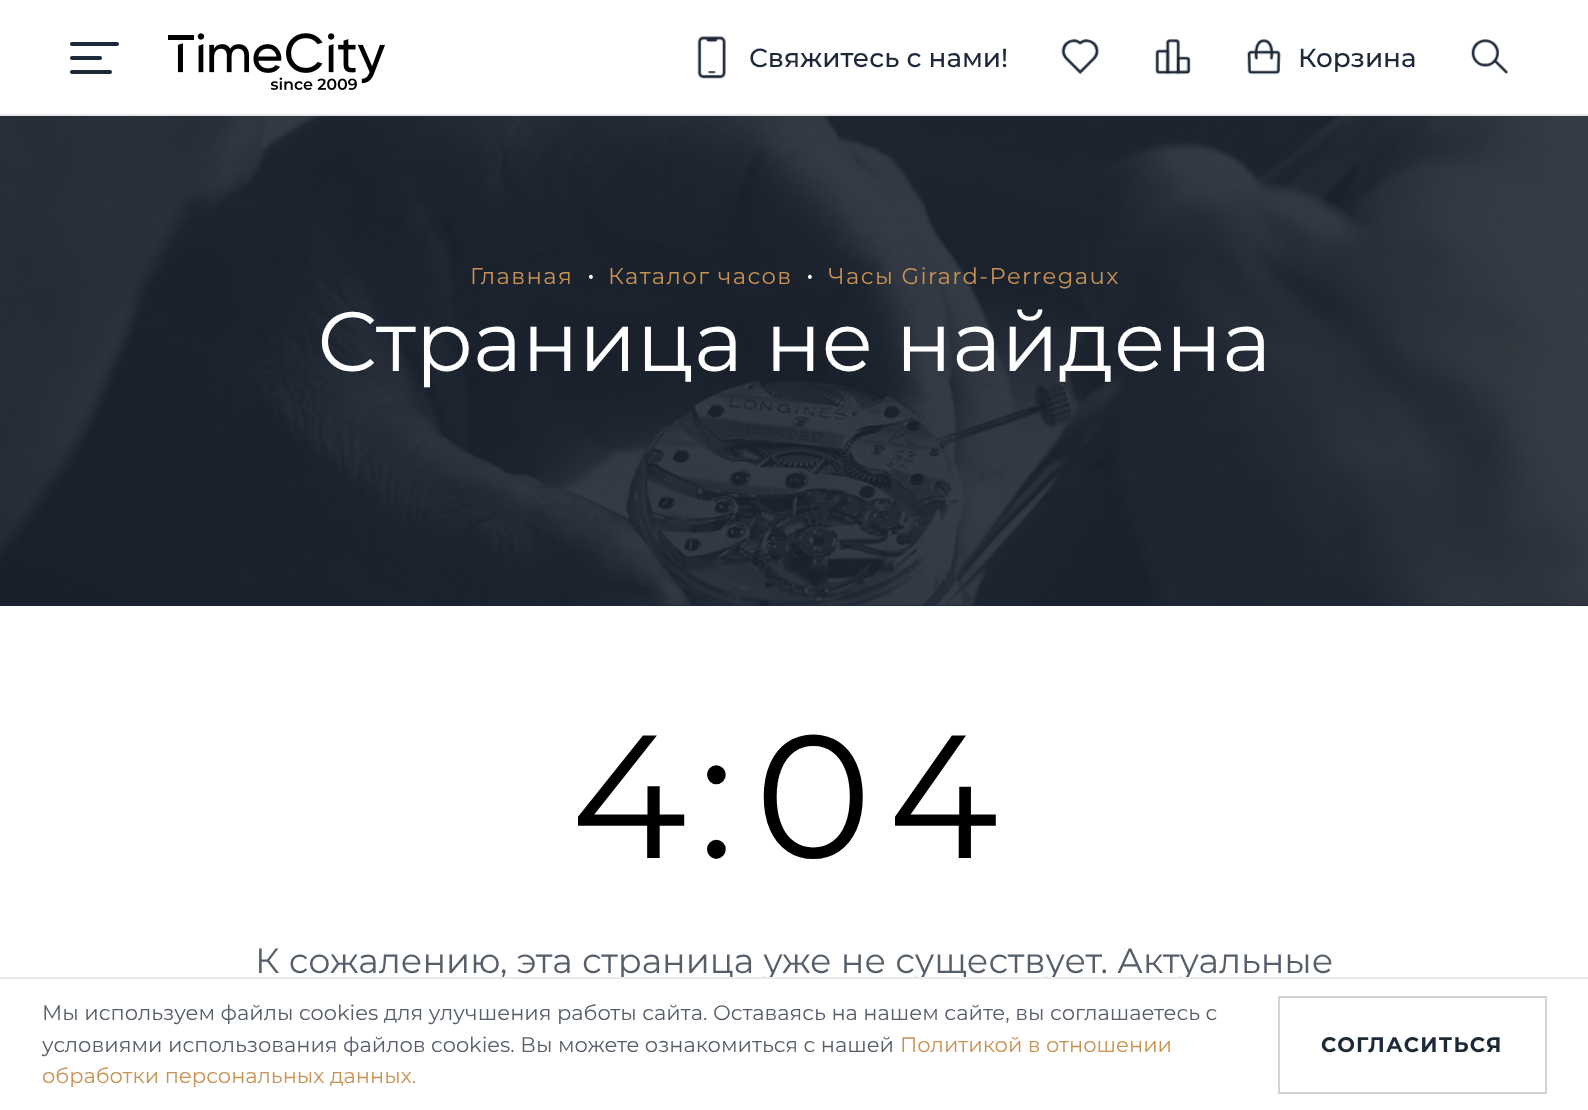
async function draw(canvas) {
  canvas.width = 1588;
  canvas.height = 1110;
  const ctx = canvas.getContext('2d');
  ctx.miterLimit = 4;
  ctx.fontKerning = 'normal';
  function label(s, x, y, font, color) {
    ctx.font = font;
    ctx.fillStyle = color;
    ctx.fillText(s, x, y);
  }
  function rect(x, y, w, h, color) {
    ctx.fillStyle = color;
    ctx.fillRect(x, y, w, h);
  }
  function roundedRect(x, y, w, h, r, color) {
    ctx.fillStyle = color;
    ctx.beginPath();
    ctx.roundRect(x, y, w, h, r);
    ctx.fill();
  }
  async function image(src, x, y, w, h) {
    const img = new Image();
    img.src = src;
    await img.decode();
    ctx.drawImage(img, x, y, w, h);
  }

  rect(0, 0, 1588, 1110, '#fff');
  rect(0, 114, 1588, 2, '#e9e9e9');
  roundedRect(70, 42, 49, 4, 2, '#1d2838');
  roundedRect(70, 56, 32, 4, 2, '#1d2838');
  roundedRect(70, 70, 42, 4, 2, '#1d2838');
  await image('assets/img1.png', 168, 33, 217, 57);
  await image('assets/img2.png', 697, 36, 29, 43);
  label('Свяжитесь с нами!', 749, 67, '500 26.25px Montserrat', '#1d2838');
  await image('assets/img3.png', 1061, 39, 38, 36);
  await image('assets/img4.png', 1155, 39, 36, 36);
  await image('assets/img5.png', 1247, 39, 34, 36);
  label('Корзина', 1298, 67, '500 26.25px Montserrat', '#1d2838');
  await image('assets/img6.png', 1471, 39, 37, 35);
  rect(0, 605, 1588, 1, '#1d2838');
  await image('assets/img7.png', 0, 116, 1588, 490);
  ctx.letterSpacing = '1.4px';
  label('Главная', 470, 284, '22.75px Montserrat', '#c89253');
  ctx.letterSpacing = '0px';
  label('•', 587, 284, '26.25px Montserrat', '#fff');
  ctx.letterSpacing = '1.4px';
  label('Каталог часов', 608, 284, '22.75px Montserrat', '#c89253');
  ctx.letterSpacing = '0px';
  label('•', 806, 284, '26.25px Montserrat', '#fff');
  ctx.letterSpacing = '1.4px';
  label('Часы Girard-Perregaux', 828, 284, '22.75px Montserrat', '#c89253');
  ctx.letterSpacing = '0px';
  label('Страница не найдена', 317, 371, '84px Montserrat', '#fff');
  ctx.letterSpacing = '10px';
  label('4:', 571, 858, '175px Montserrat', '#000');
  label('04', 752, 858, '175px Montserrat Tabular', '#000');
  ctx.letterSpacing = '0px';
  label('К сожалению, эта страница уже не существует. Актуальные', 255, 973, '35px Montserrat', '#565e6a');
  rect(621, 979, 566, 1, '#fff');
  rect(0, 977, 1588, 2, '#e9e9e9');
  label('Мы используем файлы cookies для улучшения работы сайта. Оставаясь на нашем сайте, вы соглашаетесь с', 42, 1020, '21px Montserrat', '#565e6a');
  label('условиями использования файлов cookies. Вы можете ознакомиться с нашей', 42, 1052, '21px Montserrat', '#565e6a');
  label('Политикой в отношении', 900, 1052, '21px Montserrat', '#c89253');
  label('обработки персональных данных.', 42, 1083, '21px Montserrat', '#c89253');
  ctx.strokeStyle = '#d2d4d7';
  ctx.lineWidth = 2;
  ctx.strokeRect(1279, 997, 267, 96);
  ctx.letterSpacing = '1.25px';
  label('СОГЛАСИТЬСЯ', 1321, 1052, 'bold 21px Montserrat', '#1d2838');
}

draw(document.querySelector('canvas'));
